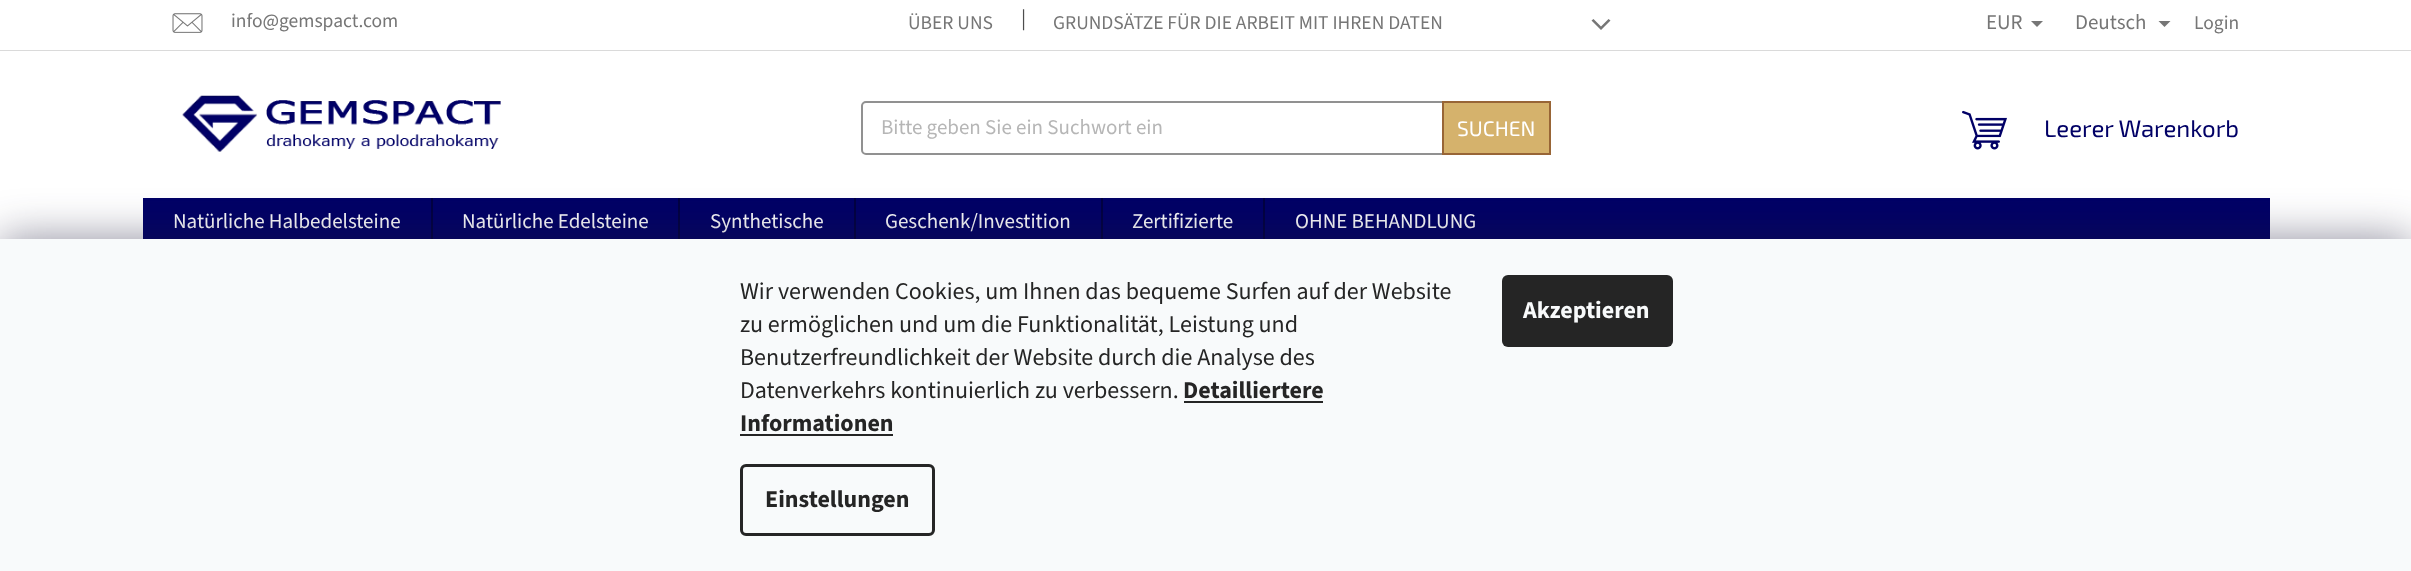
async function draw(canvas) {
  canvas.width = 2411;
  canvas.height = 571;
  const ctx = canvas.getContext('2d');
  ctx.miterLimit = 4;
  ctx.fontKerning = 'normal';
  function label(s, x, y, font, color) {
    ctx.font = font;
    ctx.fillStyle = color;
    ctx.fillText(s, x, y);
  }
  function rect(x, y, w, h, color) {
    ctx.fillStyle = color;
    ctx.fillRect(x, y, w, h);
  }
  function roundedRect(x, y, w, h, r, color) {
    ctx.fillStyle = color;
    ctx.beginPath();
    ctx.roundRect(x, y, w, h, r);
    ctx.fill();
  }
  async function image(src, x, y, w, h) {
    const img = new Image();
    img.src = src;
    await img.decode();
    ctx.drawImage(img, x, y, w, h);
  }
  let path;

  rect(0, 0, 2411, 571, '#fff');
  rect(0, 50, 2411, 1, '#dadada');
  await image('assets/img1.png', 172, 13, 31, 20);
  label('info@gemspact.com', 231, 27, '19.5px "Source Sans 3"', '#767676');
  label('ÜBER UNS', 908, 29, '19.5px "Source Sans 3"', '#767676');
  label('|', 1021, 25, '21px "Source Sans 3"', '#4d4d4d');
  label('GRUNDSÄTZE FÜR DIE ARBEIT MIT IHREN DATEN', 1053, 29, '19.5px "Source Sans 3"', '#767676');
  path = new Path2D('M1591.5 20.5L1593.5 19L1601 26.5L1608.5 19L1610.5 20.5L1601 30Z');
  ctx.fill(path);
  label('EUR', 1986, 29, '21px "Source Sans 3"', '#767676');
  path = new Path2D('M2031 21H2043L2037 27Z');
  ctx.fill(path);
  label('Deutsch', 2075, 29, '21px "Source Sans 3"', '#767676');
  path = new Path2D('M2158.5 21H2170.5L2164.5 27Z');
  ctx.fill(path);
  label('Login', 2194, 29, '19.5px "Source Sans 3"', '#767676');
  await image('assets/img2.png', 182, 95, 319, 57);
  ctx.beginPath();
  ctx.roundRect(862, 102, 688, 52, 4);
  ctx.strokeStyle = '#919191';
  ctx.lineWidth = 2;
  ctx.stroke();
  label('Bitte geben Sie ein Suchwort ein', 881, 134, '21px "Source Sans 3"', '#b6b6b6');
  ctx.fillStyle = '#d5b26c';
  ctx.beginPath();
  ctx.rect(1443, 102, 107, 52);
  ctx.fill();
  ctx.strokeStyle = '#986536';
  ctx.stroke();
  label('SUCHEN', 1457, 136, '21px "Exo 2"', '#fff');
  await image('assets/img3.png', 1962, 110, 45, 40);
  label('Leerer Warenkorb', 2044, 137, '24px "Exo 2"', '#010066');
  rect(143, 198, 2127, 41, '#010066');
  label('Natürliche Halbedelsteine', 173, 228, '21px "Source Sans 3"', '#fff');
  rect(431, 198, 2, 48, '#010042');
  label('Natürliche Edelsteine', 462, 228, '21px "Source Sans 3"', '#fff');
  rect(678, 198, 2, 48, '#010042');
  label('Synthetische', 710, 228, '21px "Source Sans 3"', '#fff');
  rect(854, 198, 2, 48, '#010042');
  label('Geschenk/Investition', 885, 228, '21px "Source Sans 3"', '#fff');
  rect(1101, 198, 2, 48, '#010042');
  label('Zertifizierte', 1132, 228, '21px "Source Sans 3"', '#fff');
  rect(1263, 198, 2, 48, '#010042');
  label('OHNE BEHANDLUNG', 1295, 228, '21px "Source Sans 3"', '#fff');
  ctx.fillStyle = '#1b193980';
  ctx.filter = 'blur(22.5px)';
  ctx.beginPath();
  ctx.rect(0, 239, 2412, 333);
  ctx.fill();
  ctx.filter = 'none';
  rect(0, 239, 2411, 332, '#f8fafb');
  label('Wir verwenden Cookies, um Ihnen das bequeme Surfen auf der Website', 740, 299, '24px "Source Sans 3"', '#252525');
  label('zu ermöglichen und um die Funktionalität, Leistung und', 740, 332, '24px "Source Sans 3"', '#252525');
  label('Benutzerfreundlichkeit der Website durch die Analyse des', 740, 365, '24px "Source Sans 3"', '#252525');
  label('Datenverkehrs kontinuierlich zu verbessern.', 740, 398, '24px "Source Sans 3"', '#252525');
  label('Detailliertere', 1183, 398, 'bold 24px "Source Sans 3"', '#252525');
  rect(1184, 401, 139, 2, '#252525');
  label('Informationen', 740, 431, 'bold 24px "Source Sans 3"', '#252525');
  rect(740, 434, 153, 2, '#252525');
  ctx.beginPath();
  ctx.roundRect(741.5, 465.5, 192, 69, 4.5);
  ctx.strokeStyle = '#252525';
  ctx.lineWidth = 3;
  ctx.stroke();
  label('Einstellungen', 765, 507, 'bold 24px "Source Sans 3"', '#252525');
  roundedRect(1502, 275, 171, 72, 6, '#252525');
  label('Akzeptieren', 1523, 318, 'bold 24px "Source Sans 3"', '#f8fafb');
}

draw(document.querySelector('canvas'));
